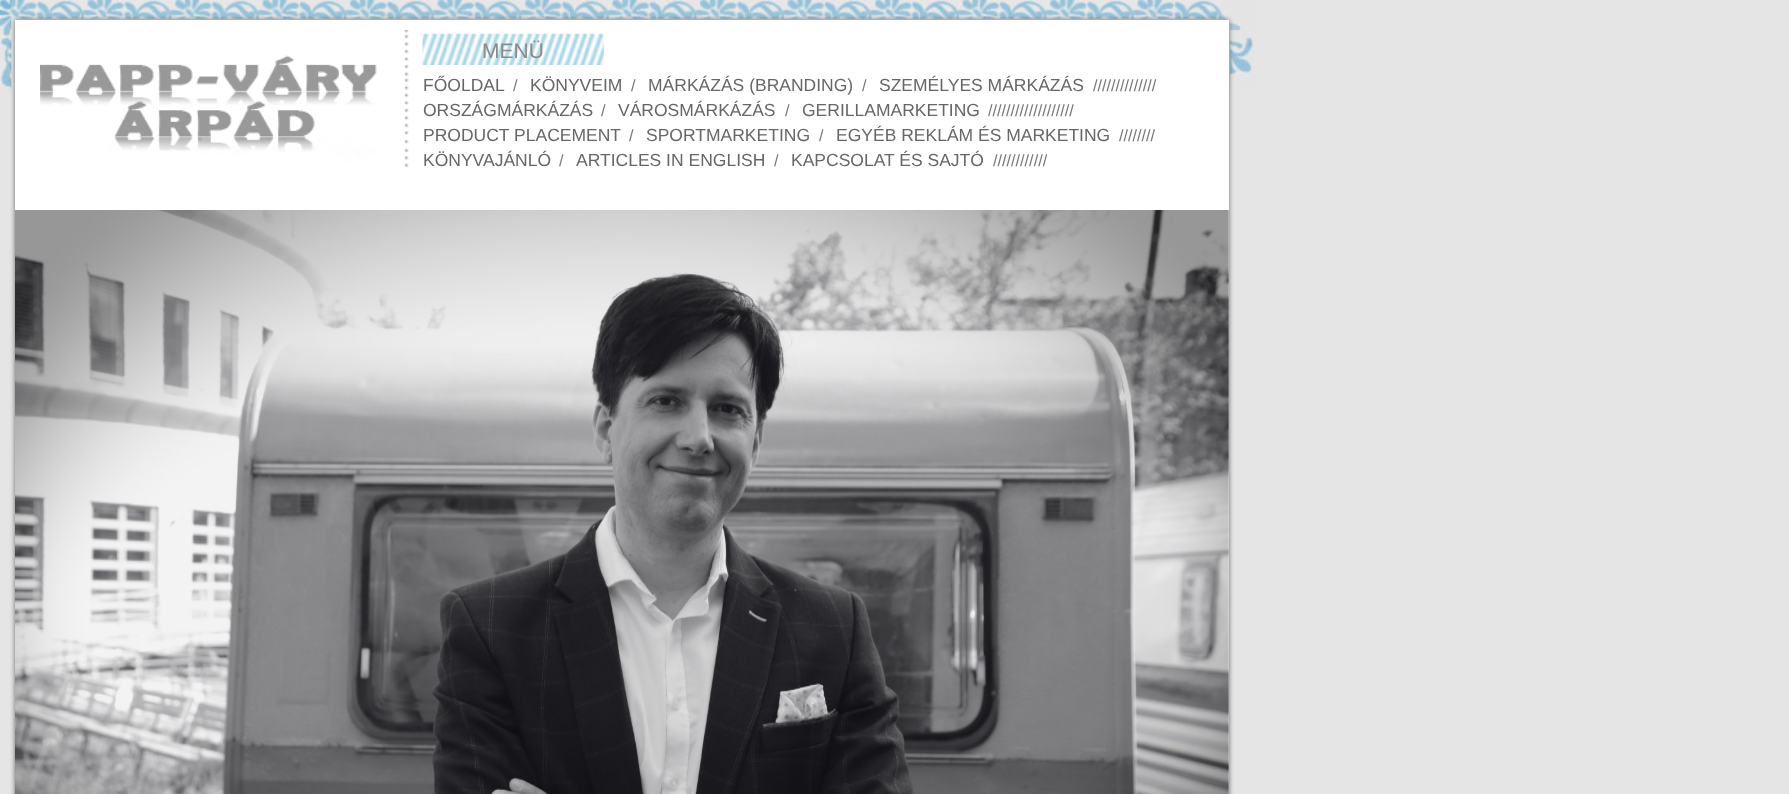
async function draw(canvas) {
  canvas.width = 1789;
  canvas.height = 794;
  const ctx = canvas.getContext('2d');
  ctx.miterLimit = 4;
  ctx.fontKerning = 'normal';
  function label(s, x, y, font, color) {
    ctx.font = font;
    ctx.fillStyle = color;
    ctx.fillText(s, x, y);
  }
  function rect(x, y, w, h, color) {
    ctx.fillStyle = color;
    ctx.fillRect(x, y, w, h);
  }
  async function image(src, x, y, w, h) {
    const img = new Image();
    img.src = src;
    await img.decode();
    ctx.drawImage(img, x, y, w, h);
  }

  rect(0, 0, 1789, 794, '#e6e5e5');
  await image('assets/img1.png', 0, 0, 1255, 90);
  ctx.fillStyle = '#666';
  ctx.filter = 'blur(2.5px)';
  ctx.beginPath();
  ctx.rect(15, 20, 1214, 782);
  ctx.fill();
  ctx.filter = 'none';
  rect(15, 20, 1214, 774, '#fff');
  await image('assets/img2.png', 40, 30, 369, 138);
  await image('assets/img3.png', 422, 33, 182, 32);
  label('MENÜ', 482, 58, '21px Liberation Sans', '#8b8b8b');
  label('FŐOLDAL', 423, 91, '17.5px Liberation Sans', '#666');
  label('/', 513, 91, '16.25px Liberation Sans', '#777');
  label('KÖNYVEIM', 530, 91, '17.5px Liberation Sans', '#666');
  label('/', 631, 91, '16.25px Liberation Sans', '#777');
  label('MÁRKÁZÁS (BRANDING)', 648, 91, '17.5px Liberation Sans', '#666');
  label('/', 862, 91, '16.25px Liberation Sans', '#777');
  label('SZEMÉLYES MÁRKÁZÁS', 879, 91, '17.5px Liberation Sans', '#666');
  label('//////////////', 1093, 91, '16.25px Liberation Sans', '#777');
  label('ORSZÁGMÁRKÁZÁS', 423, 116, '17.5px Liberation Sans', '#666');
  label('/', 601, 116, '16.25px Liberation Sans', '#777');
  label('VÁROSMÁRKÁZÁS', 618, 116, '17.5px Liberation Sans', '#666');
  label('/', 785, 116, '16.25px Liberation Sans', '#777');
  label('GERILLAMARKETING', 802, 116, '17.5px Liberation Sans', '#666');
  label('///////////////////', 988, 116, '16.25px Liberation Sans', '#777');
  label('PRODUCT PLACEMENT', 423, 141, '17.5px Liberation Sans', '#666');
  label('/', 629, 141, '16.25px Liberation Sans', '#777');
  label('SPORTMARKETING', 646, 141, '17.5px Liberation Sans', '#666');
  label('/', 819, 141, '16.25px Liberation Sans', '#777');
  label('EGYÉB REKLÁM ÉS MARKETING', 836, 141, '17.5px Liberation Sans', '#666');
  label('////////', 1119, 141, '16.25px Liberation Sans', '#777');
  label('KÖNYVAJÁNLÓ', 423, 166, '17.5px Liberation Sans', '#666');
  label('/', 559, 166, '16.25px Liberation Sans', '#777');
  label('ARTICLES IN ENGLISH', 576, 166, '17.5px Liberation Sans', '#666');
  label('/', 774, 166, '16.25px Liberation Sans', '#777');
  label('KAPCSOLAT ÉS SAJTÓ', 791, 166, '17.5px Liberation Sans', '#666');
  label('////////////', 993, 166, '16.25px Liberation Sans', '#777');
  await image('assets/img4.png', 15, 210, 1214, 584);
}

draw(document.querySelector('canvas'));
